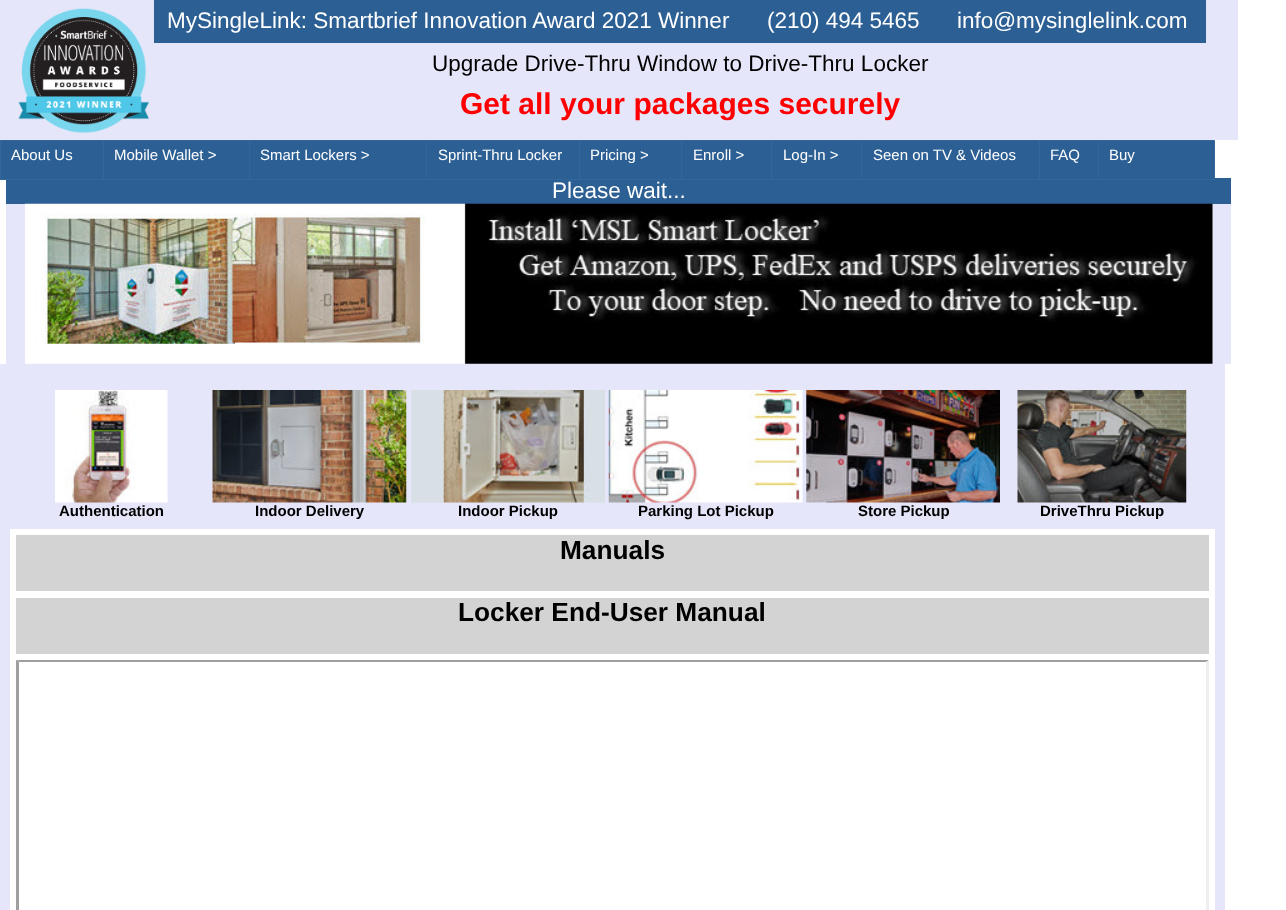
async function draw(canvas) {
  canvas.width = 1286;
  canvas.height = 910;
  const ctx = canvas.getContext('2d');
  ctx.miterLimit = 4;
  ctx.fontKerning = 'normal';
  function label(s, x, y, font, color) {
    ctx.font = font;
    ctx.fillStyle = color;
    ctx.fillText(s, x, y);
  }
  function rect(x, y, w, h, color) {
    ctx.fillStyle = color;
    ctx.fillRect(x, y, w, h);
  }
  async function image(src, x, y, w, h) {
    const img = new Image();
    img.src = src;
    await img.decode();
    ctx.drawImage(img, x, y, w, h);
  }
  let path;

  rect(0, 0, 1286, 910, '#fff');
  rect(0, 0, 1238, 140, '#e6e6fa');
  await image('assets/img1.png', 18, 8, 131, 125);
  rect(154, 0, 1052, 43, '#2c5f93');
  label('MySingleLink: Smartbrief Innovation Award 2021 Winner', 167, 28, '22.5px Liberation Sans', '#fff');
  label('(210) 494 5465', 767, 28, '22.5px Liberation Sans', '#fff');
  label('info@mysinglelink.com', 957, 28, '22.5px Liberation Sans', '#fff');
  label('Upgrade Drive-Thru Window to Drive-Thru Locker', 432, 71, '22.5px Liberation Sans', '#000');
  label('Get all your packages securely', 460, 114, 'bold 30px Liberation Sans', '#f00');
  rect(6, 178, 1225, 26, '#2c5f93');
  rect(1, 141, 102, 38, '#2c5f93');
  ctx.strokeStyle = '#369';
  ctx.strokeRect(0.5, 140.5, 104, 39);
  label('About Us', 11, 160, '15px Liberation Sans', '#fff');
  rect(104, 141, 145, 38, '#2c5f93');
  ctx.strokeRect(103.5, 140.5, 147, 39);
  label('Mobile Wallet >', 114, 160, '15px Liberation Sans', '#fff');
  rect(250, 141, 176, 38, '#2c5f93');
  ctx.strokeRect(249.5, 140.5, 179, 39);
  label('Smart Lockers >', 260, 160, '15px Liberation Sans', '#fff');
  rect(427, 141, 152, 38, '#2c5f93');
  ctx.strokeRect(426.5, 140.5, 154, 39);
  label('Sprint-Thru Locker', 438, 160, '15px Liberation Sans', '#fff');
  rect(580, 141, 101, 38, '#2c5f93');
  ctx.strokeRect(579.5, 140.5, 104, 39);
  label('Pricing >', 590, 160, '15px Liberation Sans', '#fff');
  rect(682, 141, 89, 38, '#2c5f93');
  ctx.strokeRect(681.5, 140.5, 92, 39);
  label('Enroll >', 693, 160, '15px Liberation Sans', '#fff');
  rect(772, 141, 89, 38, '#2c5f93');
  ctx.strokeRect(771.5, 140.5, 92, 39);
  label('Log-In >', 783, 160, '15px Liberation Sans', '#fff');
  rect(862, 141, 177, 38, '#2c5f93');
  ctx.strokeRect(861.5, 140.5, 179, 39);
  label('Seen on TV & Videos', 873, 160, '15px Liberation Sans', '#fff');
  rect(1040, 141, 58, 38, '#2c5f93');
  ctx.strokeRect(1039.5, 140.5, 60, 39);
  label('FAQ', 1050, 160, '15px Liberation Sans', '#fff');
  ctx.fillStyle = '#2c5f93';
  ctx.beginPath();
  ctx.rect(1098.5, 140.5, 116, 39);
  ctx.fill();
  ctx.stroke();
  label('Buy', 1109, 160, '15px Liberation Sans', '#fff');
  label('Please wait...', 552, 198, '22.5px Liberation Sans', '#fff');
  rect(6, 204, 1225, 160, '#e6e6fa');
  await image('assets/img2.png', 25, 203, 1188, 161);
  rect(0, 364, 1225, 546, '#e6e6fa');
  await image('assets/img3.png', 55, 390, 113, 113);
  await image('assets/img4.png', 212, 390, 195, 113);
  await image('assets/img5.png', 411, 390, 194, 113);
  await image('assets/img6.png', 608, 390, 195, 113);
  await image('assets/img7.png', 806, 390, 194, 113);
  await image('assets/img8.png', 1017, 390, 170, 113);
  label('Authentication', 59, 516, 'bold 15px Liberation Sans', '#000');
  label('Indoor Delivery', 255, 516, 'bold 15px Liberation Sans', '#000');
  label('Indoor Pickup', 458, 516, 'bold 15px Liberation Sans', '#000');
  label('Parking Lot Pickup', 638, 516, 'bold 15px Liberation Sans', '#000');
  label('Store Pickup', 858, 516, 'bold 15px Liberation Sans', '#000');
  label('DriveThru Pickup', 1040, 516, 'bold 15px Liberation Sans', '#000');
  rect(10, 529, 1205, 381, '#fff');
  rect(16, 535, 1193, 56, '#d3d3d3');
  label('Manuals', 560, 559, 'bold 26.25px Liberation Sans', '#000');
  rect(16, 598, 1193, 56, '#d3d3d3');
  label('Locker End-User Manual', 458, 621, 'bold 26.25px Liberation Sans', '#000');
  ctx.fillStyle = '#9f9f9f';
  path = new Path2D('M16 660H1209L1206 662H19Z');
  ctx.fill(path);
  path = new Path2D('M16 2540V660L19 662V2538Z');
  ctx.fill(path);
  ctx.fillStyle = '#eee';
  path = new Path2D('M1209 660V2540L1206 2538V662Z');
  ctx.fill(path);
}

draw(document.querySelector('canvas'));
